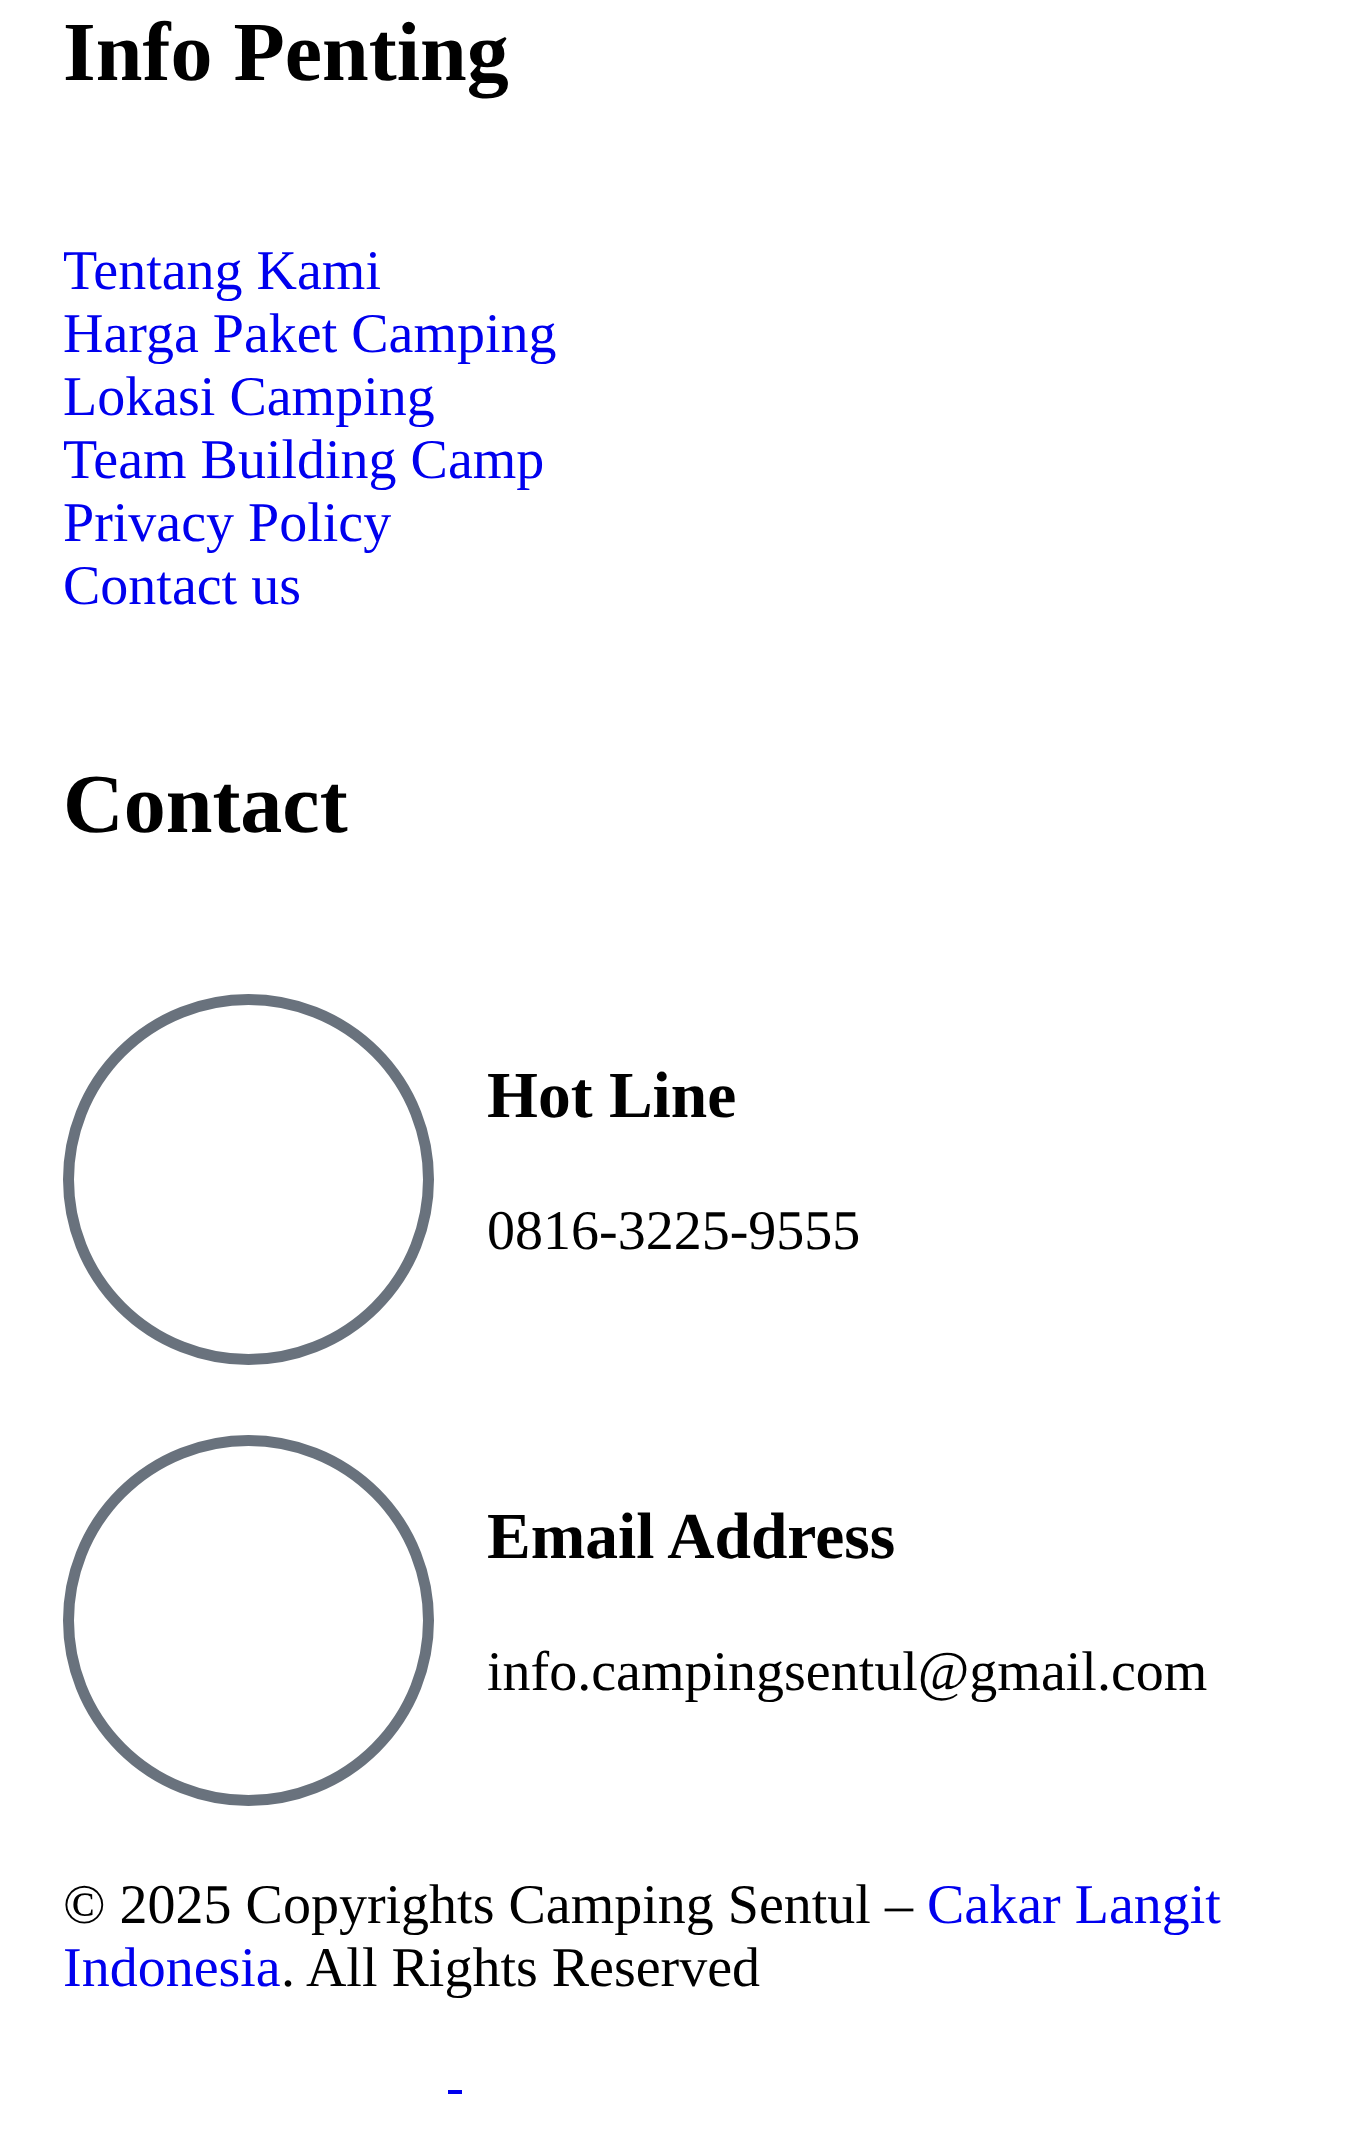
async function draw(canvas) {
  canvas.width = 1360;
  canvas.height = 2153;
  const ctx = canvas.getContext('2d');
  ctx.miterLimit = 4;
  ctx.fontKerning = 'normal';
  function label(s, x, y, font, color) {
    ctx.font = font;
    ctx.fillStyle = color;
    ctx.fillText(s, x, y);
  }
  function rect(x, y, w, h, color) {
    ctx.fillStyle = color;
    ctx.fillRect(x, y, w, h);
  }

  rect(0, 0, 1360, 2153, '#fff');
  label('Info Penting', 63, 80, 'bold 84px Liberation Serif', '#000');
  label('Tentang Kami', 63, 289, '56px Liberation Serif', '#00e');
  label('Harga Paket Camping', 63, 352, '56px Liberation Serif', '#00e');
  label('Lokasi Camping', 63, 415, '56px Liberation Serif', '#00e');
  label('Team Building Camp', 63, 478, '56px Liberation Serif', '#00e');
  label('Privacy Policy', 63, 541, '56px Liberation Serif', '#00e');
  label('Contact us', 63, 604, '56px Liberation Serif', '#00e');
  label('Contact', 63, 832, 'bold 84px Liberation Serif', '#000');
  ctx.beginPath();
  ctx.arc(248.5, 1179.5, 180, 0, 2 * Math.PI);
  ctx.strokeStyle = '#69727d';
  ctx.lineWidth = 11;
  ctx.stroke();
  label('Hot Line', 487, 1117, 'bold 65.5px Liberation Serif', '#000');
  label('0816-3225-9555', 487, 1249, '56px Liberation Serif', '#000');
  ctx.beginPath();
  ctx.arc(248.5, 1620.5, 180, 0, 2 * Math.PI);
  ctx.stroke();
  label('Email Address', 487, 1558, 'bold 65.5px Liberation Serif', '#000');
  label('info.campingsentul@gmail.com', 487, 1690, '56px Liberation Serif', '#000');
  label('© 2025 Copyrights Camping Sentul –', 63, 1923, '56px Liberation Serif', '#000');
  label('Cakar Langit', 927, 1923, '56px Liberation Serif', '#00e');
  label('Indonesia', 63, 1986, '56px Liberation Serif', '#00e');
  label('. All Rights Reserved', 281, 1986, '56px Liberation Serif', '#000');
  rect(448, 2090, 14, 4, '#00e');
}

draw(document.querySelector('canvas'));
